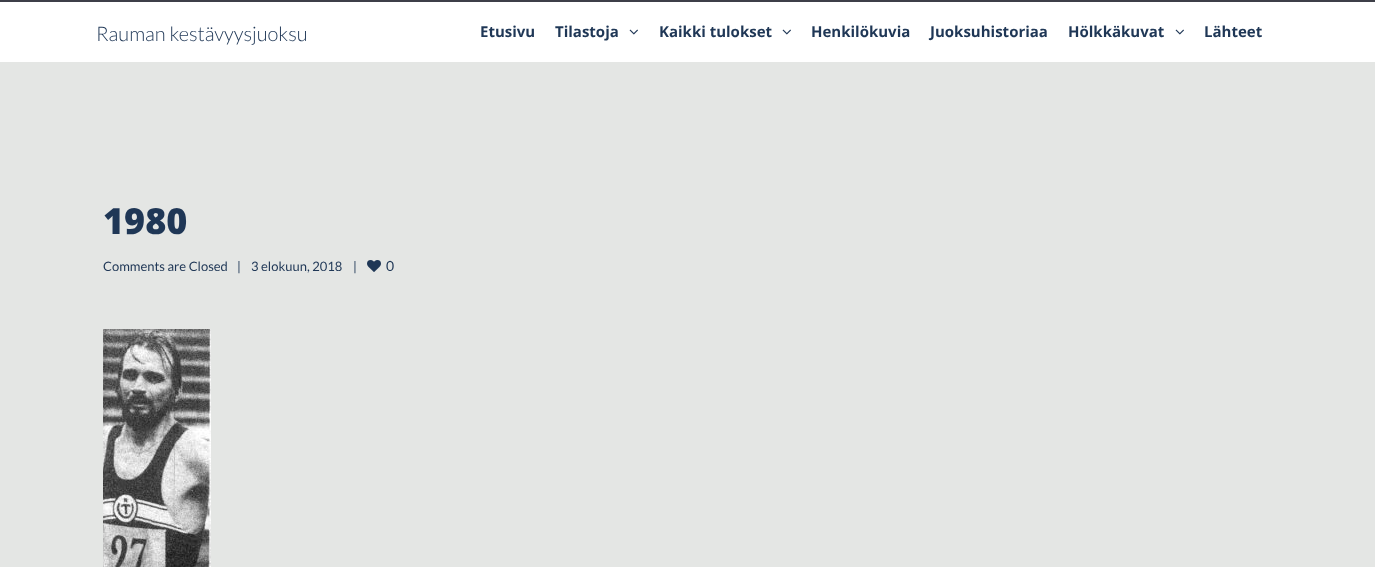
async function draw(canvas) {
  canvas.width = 1375;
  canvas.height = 567;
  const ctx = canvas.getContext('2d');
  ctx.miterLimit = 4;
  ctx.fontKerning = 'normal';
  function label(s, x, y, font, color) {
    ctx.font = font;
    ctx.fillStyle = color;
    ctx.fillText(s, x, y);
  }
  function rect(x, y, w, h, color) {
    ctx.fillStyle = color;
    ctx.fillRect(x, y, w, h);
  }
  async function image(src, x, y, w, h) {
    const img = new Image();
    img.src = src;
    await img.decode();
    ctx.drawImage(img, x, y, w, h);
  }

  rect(0, 0, 1375, 567, '#fff');
  rect(0, 0, 1375, 2, '#3e3f48');
  label('Rauman kestävyysjuoksu', 96, 41, '300 20px Lato', '#1f3756');
  label('Etusivu', 480, 37, 'bold 15px Open Sans', '#1f3756');
  label('Tilastoja', 555, 37, 'bold 15px Open Sans', '#1f3756');
  await image('assets/img1.png', 629, 29, 9, 6);
  label('Kaikki tulokset', 659, 37, 'bold 15px Open Sans', '#1f3756');
  await image('assets/img1.png', 782, 29, 9, 6);
  label('Henkilökuvia', 811, 37, 'bold 15px Open Sans', '#1f3756');
  label('Juoksuhistoriaa', 930, 37, 'bold 15px Open Sans', '#1f3756');
  label('Hölkkäkuvat', 1068, 37, 'bold 15px Open Sans', '#1f3756');
  await image('assets/img1.png', 1175, 29, 9, 6);
  label('Lähteet', 1204, 37, 'bold 15px Open Sans', '#1f3756');
  rect(0, 62, 1375, 505, '#e4e6e4');
  label('1980', 103, 234, '800 36px Open Sans', '#1f3756');
  label('Comments are Closed', 103, 271, '13px Lato', '#1f3756');
  label('|', 237, 271, '13px Lato', '#1f3756');
  label('3 elokuun, 2018', 251, 271, '13px Lato', '#1f3756');
  label('|', 353, 271, '13px Lato', '#1f3756');
  await image('assets/img2.png', 367, 260, 14, 12);
  label('0', 386, 271, '14px Lato', '#1f3756');
  await image('assets/img3.png', 103, 329, 108, 238);
}

draw(document.querySelector('canvas'));
